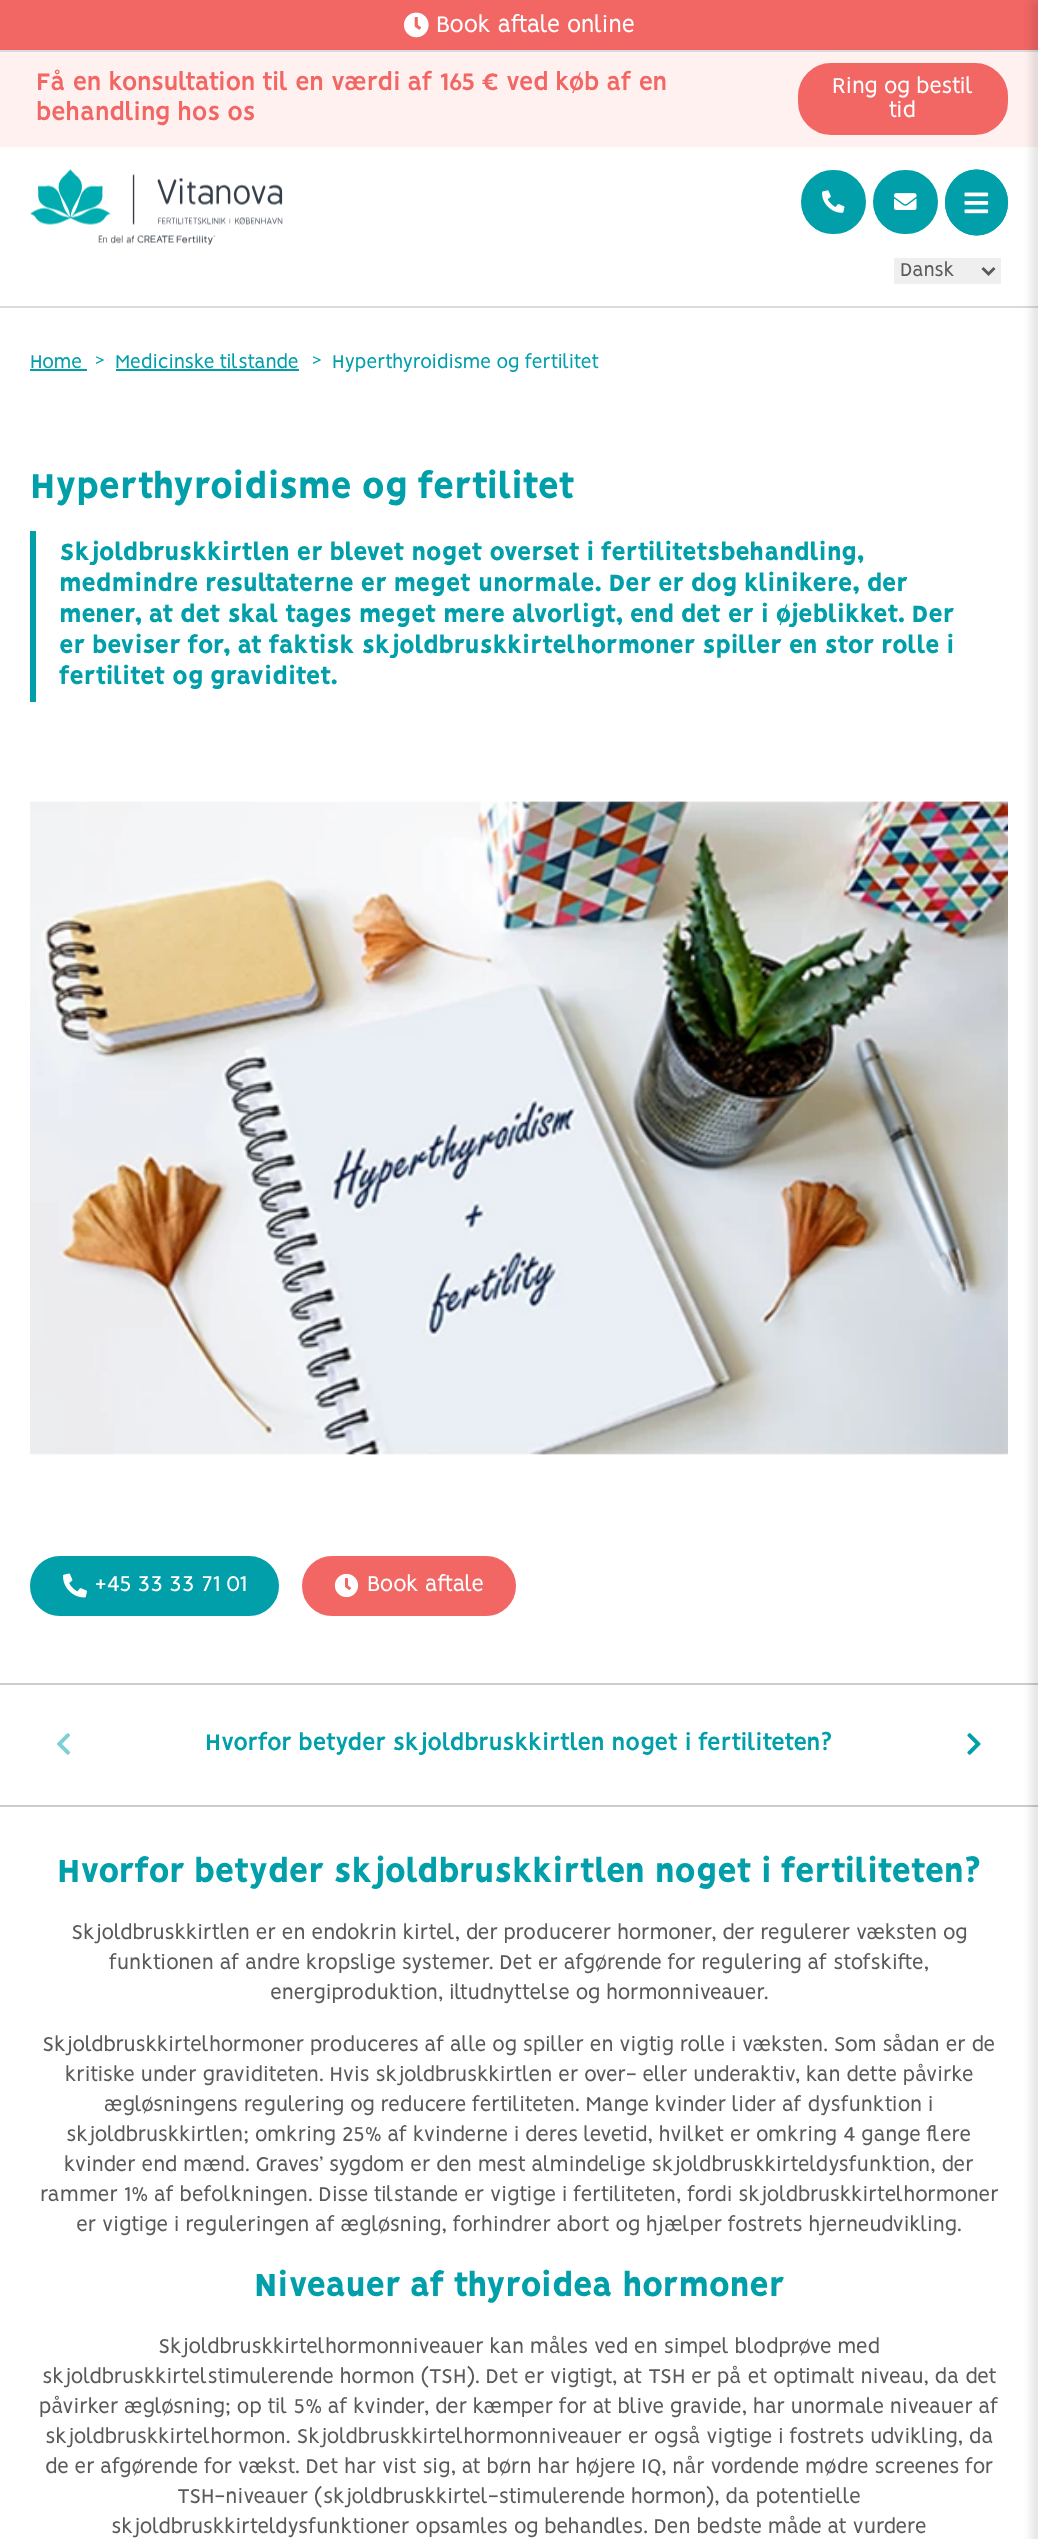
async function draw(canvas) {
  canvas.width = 1038;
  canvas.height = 2539;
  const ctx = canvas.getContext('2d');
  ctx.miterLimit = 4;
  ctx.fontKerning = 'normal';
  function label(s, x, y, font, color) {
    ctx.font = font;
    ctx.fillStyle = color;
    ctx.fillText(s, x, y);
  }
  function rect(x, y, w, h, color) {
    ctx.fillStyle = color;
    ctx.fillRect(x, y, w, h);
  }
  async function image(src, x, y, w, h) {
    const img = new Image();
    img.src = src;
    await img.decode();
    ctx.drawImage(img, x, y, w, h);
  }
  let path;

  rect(0, 0, 1038, 2539, '#fff');
  rect(0, 306, 1038, 2, '#d8dadc');
  rect(0, 0, 1038, 50, '#f26664');
  await image('assets/img1.png', 403, 12, 26, 26);
  label('Book aftale online', 436, 32, '25.5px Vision', '#fff');
  rect(0, 52, 1038, 95, '#fef1ef');
  rect(0, 50, 1038, 2, '#d8dadc');
  label('Få en konsultation til en værdi af 165 € ved køb af en', 36, 90, 'bold 27px Vision', '#f26664');
  label('behandling hos os', 36, 120, 'bold 27px Vision', '#f26664');
  ctx.beginPath();
  ctx.roundRect(799.5, 64.5, 207, 69, 31.5);
  ctx.fill();
  ctx.strokeStyle = '#f26664';
  ctx.lineWidth = 3;
  ctx.stroke();
  label('Ring og bestil', 832, 93, '24px Vision', '#fff');
  label('tid', 889, 117, '24px Vision', '#fff');
  await image('assets/img2.png', 30, 169, 253, 76);
  ctx.fillStyle = '#009fa9';
  ctx.beginPath();
  ctx.roundRect(802.5, 171.5, 62, 61, 30.5);
  ctx.fill();
  ctx.strokeStyle = '#009fa9';
  ctx.stroke();
  await image('assets/img3.png', 822, 190, 23, 23);
  ctx.beginPath();
  ctx.roundRect(874.5, 171.5, 62, 61, 30.5);
  ctx.fill();
  ctx.stroke();
  await image('assets/img4.png', 894, 193, 23, 17);
  ctx.beginPath();
  ctx.ellipse(976.5, 202.5, 31.5, 33, 0, 0, 2 * Math.PI);
  ctx.fill();
  path = new Path2D('M976.5 171C993 171 1006.5 185 1006.5 202.5C1006.5 220 993 234 976.5 234C960 234 946.5 220 946.5 202.5C946.5 185 960 171 976.5 171Z');
  ctx.stroke(path);
  await image('assets/img5.png', 964, 192, 25, 22);
  rect(894, 258, 107, 26, '#efefef');
  path = new Path2D('M982.5 268L988.5 274L994.5 268');
  ctx.strokeStyle = '#5a5a5a';
  ctx.stroke(path);
  label('Dansk', 900, 276, '21px Vision', '#5a5a5a');
  rect(0, 1683, 1038, 2, '#cbcdce');
  rect(0, 1805, 1038, 2, '#cbcdce');
  ctx.fillStyle = '#0000001a';
  ctx.filter = 'blur(4px)';
  ctx.beginPath();
  ctx.rect(1031, 0, 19, 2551);
  ctx.fill();
  ctx.filter = 'none';
  label('Home', 30, 368, '21px Vision', '#009fa9');
  rect(30, 369, 57, 2, '#009fa9');
  label('>', 95, 368, '300 22.5px Vision', '#009fa9');
  label('Medicinske tilstande', 115, 368, '21px Vision', '#009fa9');
  rect(116, 369, 183, 2, '#009fa9');
  label('>', 312, 368, '300 22.5px Vision', '#009fa9');
  label('Hyperthyroidisme og fertilitet', 332, 368, '21px Vision', '#009fa9');
  label('Hyperthyroidisme og fertilitet', 30, 498, '900 39px Vision', '#009fa9');
  rect(30, 531, 6, 171, '#009fa9');
  label('Skjoldbruskkirtlen er blevet noget overset i fertilitetsbehandling,', 59, 560, '900 26.4px Vision', '#009fa9');
  label('medmindre resultaterne er meget unormale. Der er dog klinikere, der', 59, 591, '900 26.4px Vision', '#009fa9');
  label('mener, at det skal tages meget mere alvorligt, end det er i øjeblikket. Der', 59, 622, '900 26.4px Vision', '#009fa9');
  label('er beviser for, at faktisk skjoldbruskkirtelhormoner spiller en stor rolle i', 59, 653, '900 26.4px Vision', '#009fa9');
  label('fertilitet og graviditet.', 59, 684, '900 26.4px Vision', '#009fa9');
  await image('assets/img6.png', 30, 801, 978, 654);
  ctx.beginPath();
  ctx.roundRect(31.5, 1557.5, 246, 57, 28.5);
  ctx.fill();
  ctx.strokeStyle = '#009fa9';
  ctx.stroke();
  await image('assets/img7.png', 63, 1573, 24, 25);
  label('+45 33 33 71 01', 95, 1591, '24px Vision', '#fff');
  ctx.fillStyle = '#f26664';
  ctx.beginPath();
  ctx.roundRect(303.5, 1557.5, 211, 57, 28.5);
  ctx.fill();
  ctx.strokeStyle = '#f26664';
  ctx.stroke();
  await image('assets/img8.png', 334, 1573, 25, 25);
  label('Book aftale', 367, 1591, '24px Vision', '#fff');
  label('Hvorfor betyder skjoldbruskkirtlen noget i fertiliteten?', 205, 1750, 'bold 25.5px Vision', '#009fa9');
  await image('assets/img9.png', 56, 1733, 14, 22);
  await image('assets/img10.png', 967, 1733, 14, 22);
  label('Hvorfor betyder skjoldbruskkirtlen noget i fertiliteten?', 57, 1882, '900 36px Vision', '#009fa9');
  label('Skjoldbruskkirtlen er en endokrin kirtel, der producerer hormoner, der regulerer væksten og', 71, 1939, '22.5px Vision', '#5a5a5a');
  label('funktionen af andre kropslige systemer. Det er afgørende for regulering af stofskifte,', 109, 1969, '22.5px Vision', '#5a5a5a');
  label('energiproduktion, iltudnyttelse og hormonniveauer.', 270, 1999, '22.5px Vision', '#5a5a5a');
  label('Skjoldbruskkirtelhormoner produceres af alle og spiller en vigtig rolle i væksten. Som sådan er de', 42, 2051, '22.5px Vision', '#5a5a5a');
  label('kritiske under graviditeten. Hvis skjoldbruskkirtlen er over- eller underaktiv, kan dette påvirke', 65, 2081, '22.5px Vision', '#5a5a5a');
  label('ægløsningens regulering og reducere fertiliteten. Mange kvinder lider af dysfunktion i', 104, 2111, '22.5px Vision', '#5a5a5a');
  label('skjoldbruskkirtlen; omkring 25% af kvinderne i deres levetid, hvilket er omkring 4 gange flere', 66, 2141, '22.5px Vision', '#5a5a5a');
  label('kvinder end mænd. Graves’ sygdom er den mest almindelige skjoldbruskkirteldysfunktion, der', 64, 2171, '22.5px Vision', '#5a5a5a');
  label('rammer 1% af befolkningen. Disse tilstande er vigtige i fertiliteten, fordi skjoldbruskkirtelhormoner', 40, 2201, '22.5px Vision', '#5a5a5a');
  label('er vigtige i reguleringen af ægløsning, forhindrer abort og hjælper fostrets hjerneudvikling.', 76, 2231, '22.5px Vision', '#5a5a5a');
  label('Niveauer af thyroidea hormoner', 254, 2296, '900 36px Vision', '#009fa9');
  label('Skjoldbruskkirtelhormonniveauer kan måles ved en simpel blodprøve med', 158, 2353, '22.5px Vision', '#5a5a5a');
  label('skjoldbruskkirtelstimulerende hormon (TSH). Det er vigtigt, at TSH er på et optimalt niveau, da det', 42, 2383, '22.5px Vision', '#5a5a5a');
  label('påvirker ægløsning; op til 5% af kvinder, der kæmper for at blive gravide, har unormale niveauer af', 39, 2413, '22.5px Vision', '#5a5a5a');
  label('skjoldbruskkirtelhormon. Skjoldbruskkirtelhormonniveauer er også vigtige i fostrets udvikling, da', 45, 2443, '22.5px Vision', '#5a5a5a');
  label('de er afgørende for vækst. Det har vist sig, at børn har højere IQ, når vordende mødre screenes for', 45, 2473, '22.5px Vision', '#5a5a5a');
  label('TSH-niveauer (skjoldbruskkirtel-stimulerende hormon), da potentielle', 177, 2503, '22.5px Vision', '#5a5a5a');
  label('skjoldbruskkirteldysfunktioner opsamles og behandles. Den bedste måde at vurdere', 111, 2533, '22.5px Vision', '#5a5a5a');
}

draw(document.querySelector('canvas'));
